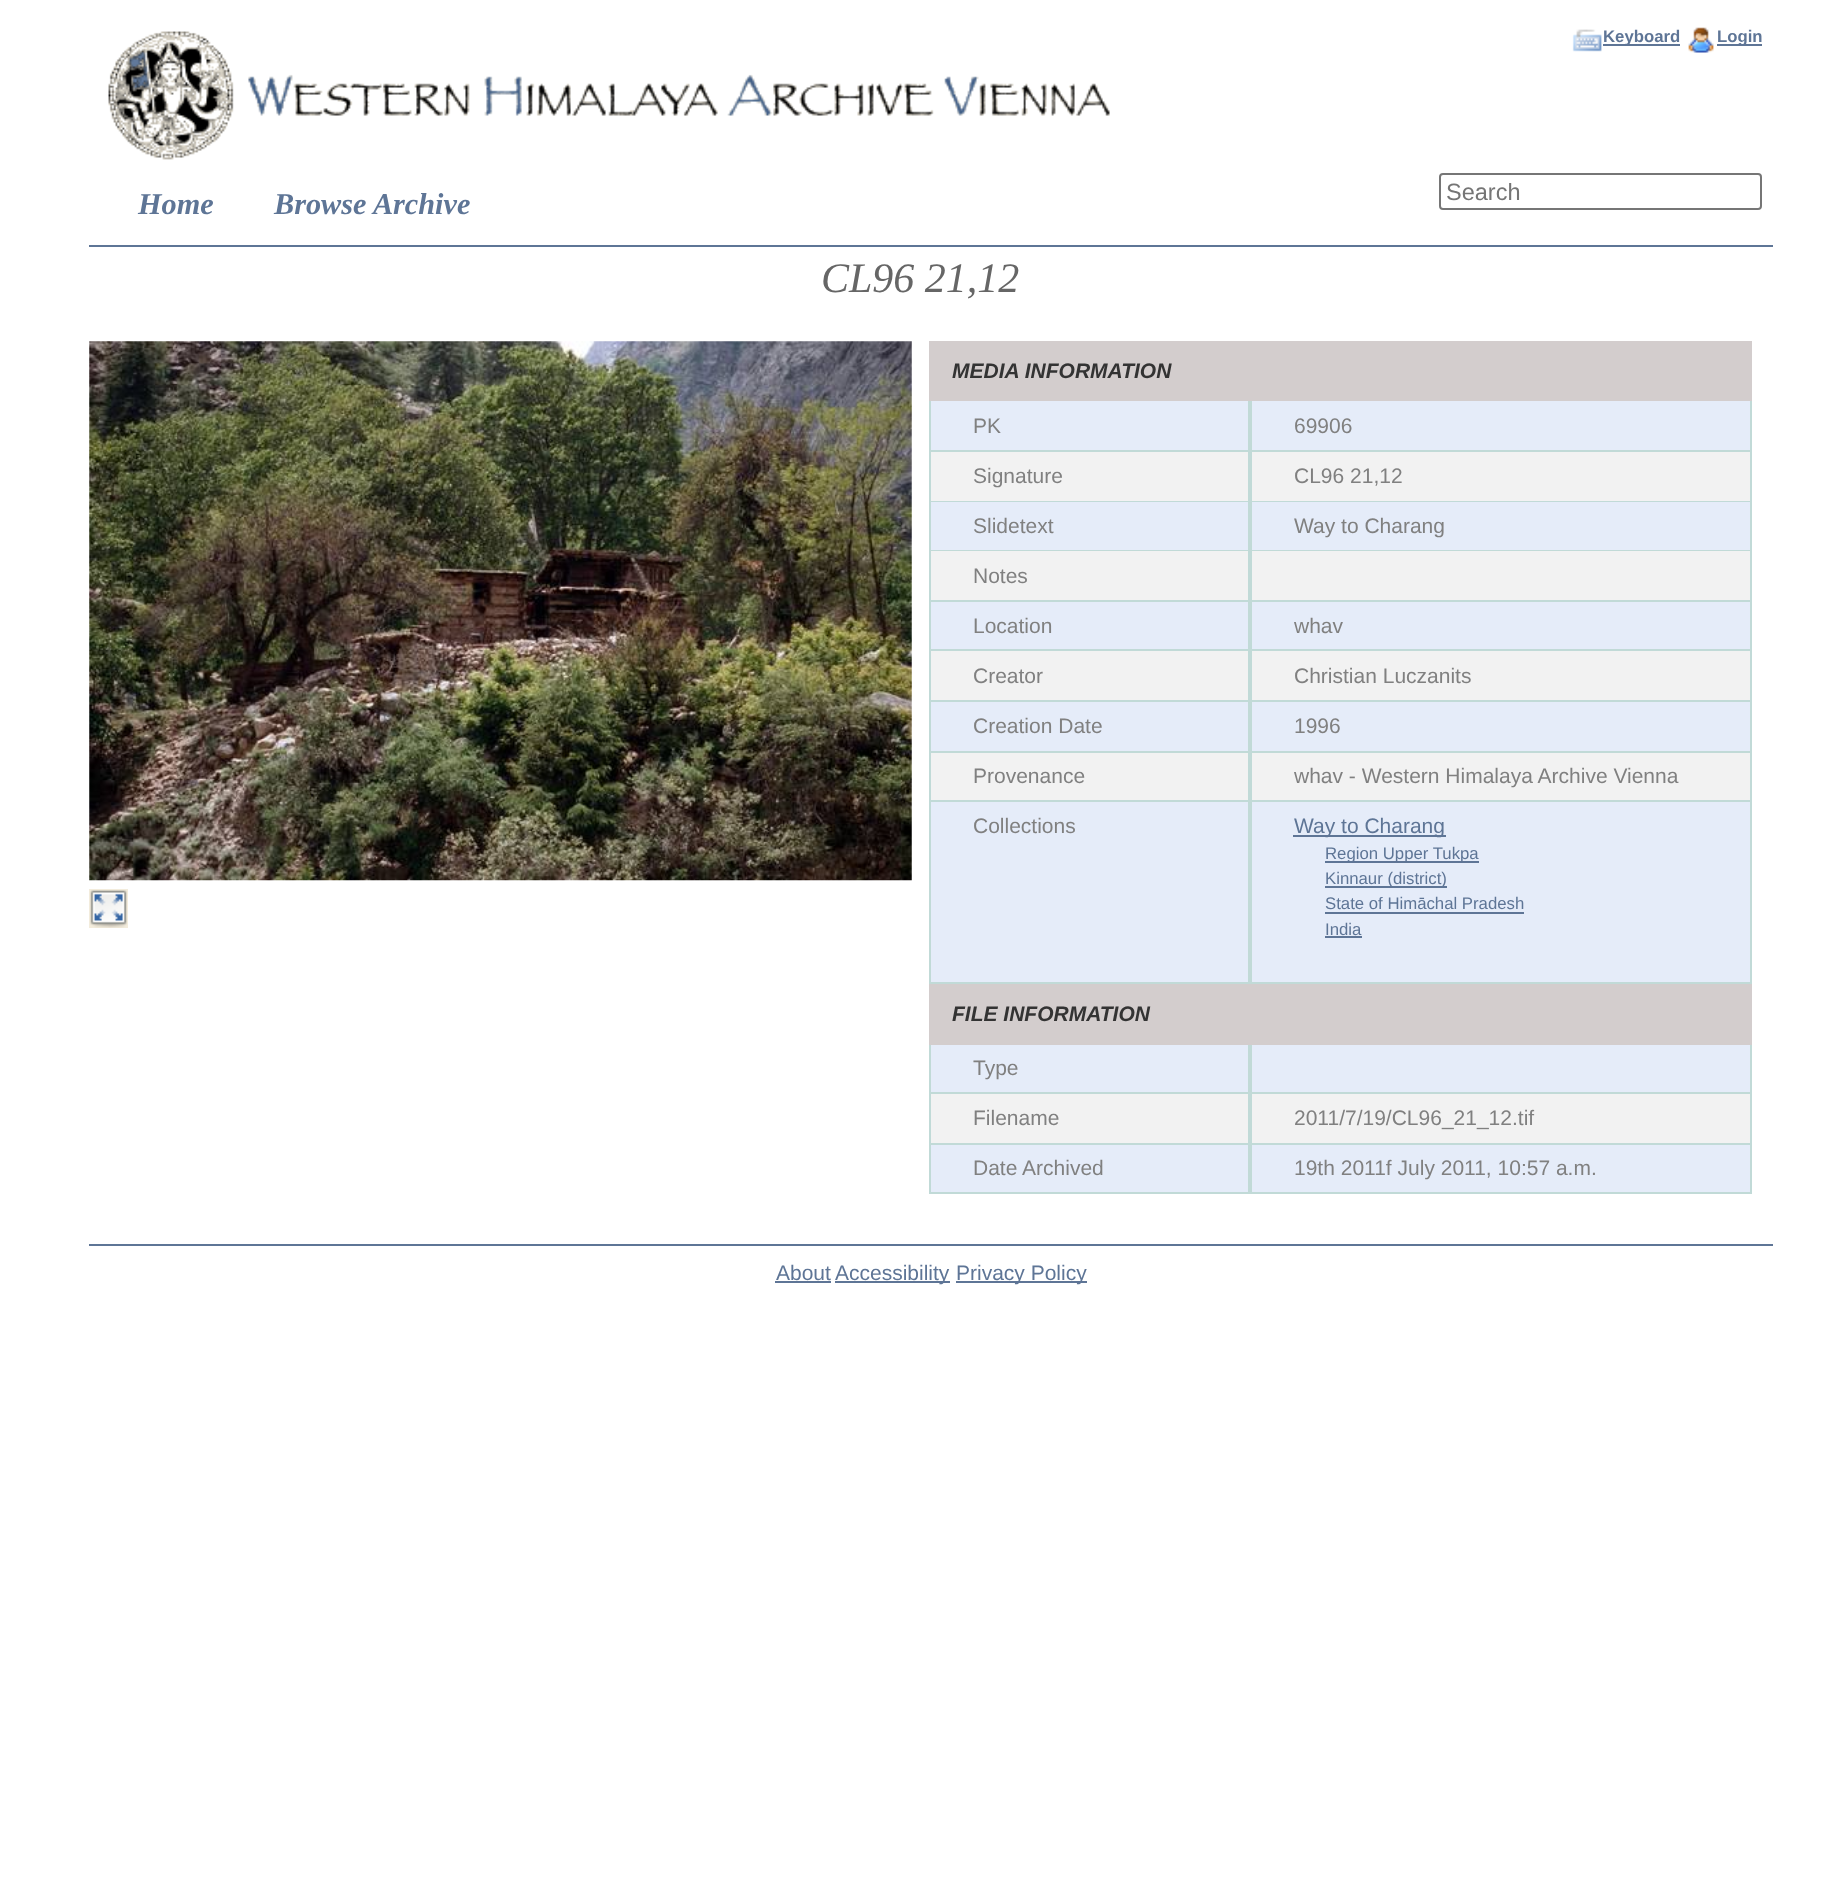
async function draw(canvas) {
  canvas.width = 1841;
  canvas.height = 1877;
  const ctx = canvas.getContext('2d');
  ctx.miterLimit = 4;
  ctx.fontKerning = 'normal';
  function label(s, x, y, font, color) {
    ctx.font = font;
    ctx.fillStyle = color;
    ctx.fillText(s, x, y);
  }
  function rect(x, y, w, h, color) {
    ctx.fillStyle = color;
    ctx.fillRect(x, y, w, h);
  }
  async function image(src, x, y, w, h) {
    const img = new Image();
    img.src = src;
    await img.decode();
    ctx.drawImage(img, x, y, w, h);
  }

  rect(0, 0, 1841, 1877, '#fff');
  rect(89, 245, 1684, 2, '#5e7596');
  await image('assets/img1.png', 108, 31, 1002, 129);
  await image('assets/img2.png', 1572, 29, 30, 23);
  rect(1603, 44, 77, 2, '#5e7596');
  label('Keyboard', 1603, 42, 'bold 16.75px Liberation Sans', '#5e7596');
  await image('assets/img3.png', 1688, 27, 26, 26);
  rect(1717, 44, 45, 2, '#5e7596');
  label('Login', 1717, 42, 'bold 16.75px Liberation Sans', '#5e7596');
  label('Home', 138, 214, 'italic bold 30.25px Liberation Serif', '#5e7596');
  label('Browse Archive', 274, 214, 'italic bold 30.25px Liberation Serif', '#5e7596');
  ctx.beginPath();
  ctx.roundRect(1440, 174, 321, 35, 3);
  ctx.strokeStyle = '#767676';
  ctx.lineWidth = 2;
  ctx.stroke();
  label('Search', 1446, 200, '23.5px Liberation Sans', '#757575');
  label('CL96 21,12', 821, 292, 'italic 42px Liberation Serif', '#666');
  await image('assets/img4.png', 89, 341, 823, 540);
  rect(89, 889, 39, 39, '#f3ecdc');
  await image('assets/img5.png', 90, 890, 37, 38);
  rect(929, 341, 823, 60, '#d3cdcd');
  label('MEDIA INFORMATION', 952, 378, 'italic bold 21px Liberation Sans', '#333');
  rect(931, 401, 317, 49, '#e5ecf9');
  rect(1248, 401, 2, 583, '#c1dad7');
  rect(929, 450, 321, 2, '#c1dad7');
  rect(929, 401, 2, 51, '#c1dad7');
  label('PK', 973, 433, '21px Liberation Sans', '#808080');
  rect(1252, 401, 498, 49, '#e5ecf9');
  rect(1750, 401, 2, 583, '#c1dad7');
  rect(1250, 450, 502, 2, '#c1dad7');
  rect(1250, 401, 2, 51, '#c1dad7');
  label('69906', 1294, 433, '21px Liberation Sans', '#808080');
  rect(931, 452, 317, 49, '#f2f2f2');
  rect(929, 501, 823, 1, '#c1dad7');
  rect(929, 452, 2, 50, '#c1dad7');
  label('Signature', 973, 483, '21px Liberation Sans', '#808080');
  rect(1252, 452, 498, 49, '#f2f2f2');
  rect(1250, 452, 2, 50, '#c1dad7');
  label('CL96 21,12', 1294, 483, '21px Liberation Sans', '#808080');
  rect(931, 502, 317, 48, '#e5ecf9');
  rect(929, 550, 823, 1, '#c1dad7');
  rect(929, 502, 2, 49, '#c1dad7');
  label('Slidetext', 973, 533, '21px Liberation Sans', '#808080');
  rect(1252, 502, 498, 48, '#e5ecf9');
  rect(1250, 502, 2, 49, '#c1dad7');
  label('Way to Charang', 1294, 533, '21px Liberation Sans', '#808080');
  rect(931, 551, 317, 49, '#f2f2f2');
  rect(929, 600, 823, 2, '#c1dad7');
  rect(929, 551, 2, 51, '#c1dad7');
  label('Notes', 973, 583, '21px Liberation Sans', '#808080');
  rect(1252, 551, 498, 49, '#f2f2f2');
  rect(1250, 551, 2, 51, '#c1dad7');
  rect(931, 602, 317, 47, '#e5ecf9');
  rect(929, 649, 823, 2, '#c1dad7');
  rect(929, 602, 2, 49, '#c1dad7');
  label('Location', 973, 633, '21px Liberation Sans', '#808080');
  rect(1252, 602, 498, 47, '#e5ecf9');
  rect(1250, 602, 2, 49, '#c1dad7');
  label('whav', 1294, 633, '21px Liberation Sans', '#808080');
  rect(931, 651, 317, 49, '#f2f2f2');
  rect(929, 700, 823, 2, '#c1dad7');
  rect(929, 651, 2, 51, '#c1dad7');
  label('Creator', 973, 683, '21px Liberation Sans', '#808080');
  rect(1252, 651, 498, 49, '#f2f2f2');
  rect(1250, 651, 2, 51, '#c1dad7');
  label('Christian Luczanits', 1294, 683, '21px Liberation Sans', '#808080');
  rect(931, 702, 317, 49, '#e5ecf9');
  rect(929, 751, 823, 2, '#c1dad7');
  rect(929, 702, 2, 51, '#c1dad7');
  label('Creation Date', 973, 733, '21px Liberation Sans', '#808080');
  rect(1252, 702, 498, 49, '#e5ecf9');
  rect(1250, 702, 2, 51, '#c1dad7');
  label('1996', 1294, 733, '21px Liberation Sans', '#808080');
  rect(931, 753, 317, 47, '#f2f2f2');
  rect(929, 800, 823, 2, '#c1dad7');
  rect(929, 753, 2, 49, '#c1dad7');
  label('Provenance', 973, 783, '21px Liberation Sans', '#808080');
  rect(1252, 753, 498, 47, '#f2f2f2');
  rect(1250, 753, 2, 49, '#c1dad7');
  label('whav - Western Himalaya Archive Vienna', 1294, 783, '21px Liberation Sans', '#808080');
  rect(931, 802, 317, 180, '#e5ecf9');
  rect(929, 982, 823, 2, '#c1dad7');
  rect(929, 802, 2, 182, '#c1dad7');
  label('Collections', 973, 833, '21px Liberation Sans', '#808080');
  rect(1252, 802, 498, 180, '#e5ecf9');
  rect(1250, 802, 2, 182, '#c1dad7');
  rect(1293, 835, 153, 2, '#5e7596');
  label('Way to Charang', 1294, 833, '21px Liberation Sans', '#5e7596');
  rect(1325, 861, 154, 2, '#5e7596');
  label('Region Upper Tukpa', 1325, 859, '16.75px Liberation Sans', '#5e7596');
  rect(1325, 886, 122, 2, '#5e7596');
  label('Kinnaur (district)', 1325, 884, '16.75px Liberation Sans', '#5e7596');
  label('State of Himāchal Pradesh', 1325, 909, '16.75px Liberation Sans', '#5e7596');
  rect(1325, 912, 199, 2, '#5e7596');
  label('India', 1325, 935, '16.75px Liberation Sans', '#5e7596');
  rect(1325, 936, 37, 2, '#5e7596');
  rect(929, 984, 823, 61, '#d3cdcd');
  label('FILE INFORMATION', 952, 1021, 'italic bold 21px Liberation Sans', '#333');
  rect(931, 1045, 317, 47, '#e5ecf9');
  rect(1248, 1045, 2, 149, '#c1dad7');
  rect(929, 1092, 321, 2, '#c1dad7');
  rect(929, 1045, 2, 49, '#c1dad7');
  label('Type', 973, 1075, '21px Liberation Sans', '#808080');
  rect(1252, 1045, 498, 47, '#e5ecf9');
  rect(1750, 1045, 2, 149, '#c1dad7');
  rect(1250, 1092, 502, 2, '#c1dad7');
  rect(1250, 1045, 2, 49, '#c1dad7');
  rect(931, 1094, 317, 49, '#f2f2f2');
  rect(929, 1143, 823, 2, '#c1dad7');
  rect(929, 1094, 2, 51, '#c1dad7');
  label('Filename', 973, 1125, '21px Liberation Sans', '#808080');
  rect(1252, 1094, 498, 49, '#f2f2f2');
  rect(1250, 1094, 2, 51, '#c1dad7');
  label('2011/7/19/CL96_21_12.tif', 1294, 1125, '21px Liberation Sans', '#808080');
  rect(931, 1145, 317, 47, '#e5ecf9');
  rect(929, 1192, 823, 2, '#c1dad7');
  rect(929, 1145, 2, 49, '#c1dad7');
  label('Date Archived', 973, 1175, '21px Liberation Sans', '#808080');
  rect(1252, 1145, 498, 47, '#e5ecf9');
  rect(1250, 1145, 2, 49, '#c1dad7');
  label('19th 2011f July 2011, 10:57 a.m.', 1294, 1175, '21px Liberation Sans', '#808080');
  rect(89, 1244, 1684, 2, '#5e7596');
  label('About', 776, 1280, '21px Liberation Sans', '#5e7596');
  rect(775, 1281, 56, 2, '#5e7596');
  rect(835, 1281, 115, 2, '#5e7596');
  label('Accessibility', 835, 1280, '21px Liberation Sans', '#5e7596');
  rect(956, 1281, 131, 2, '#5e7596');
  label('Privacy Policy', 956, 1280, '21px Liberation Sans', '#5e7596');
}

draw(document.querySelector('canvas'));
